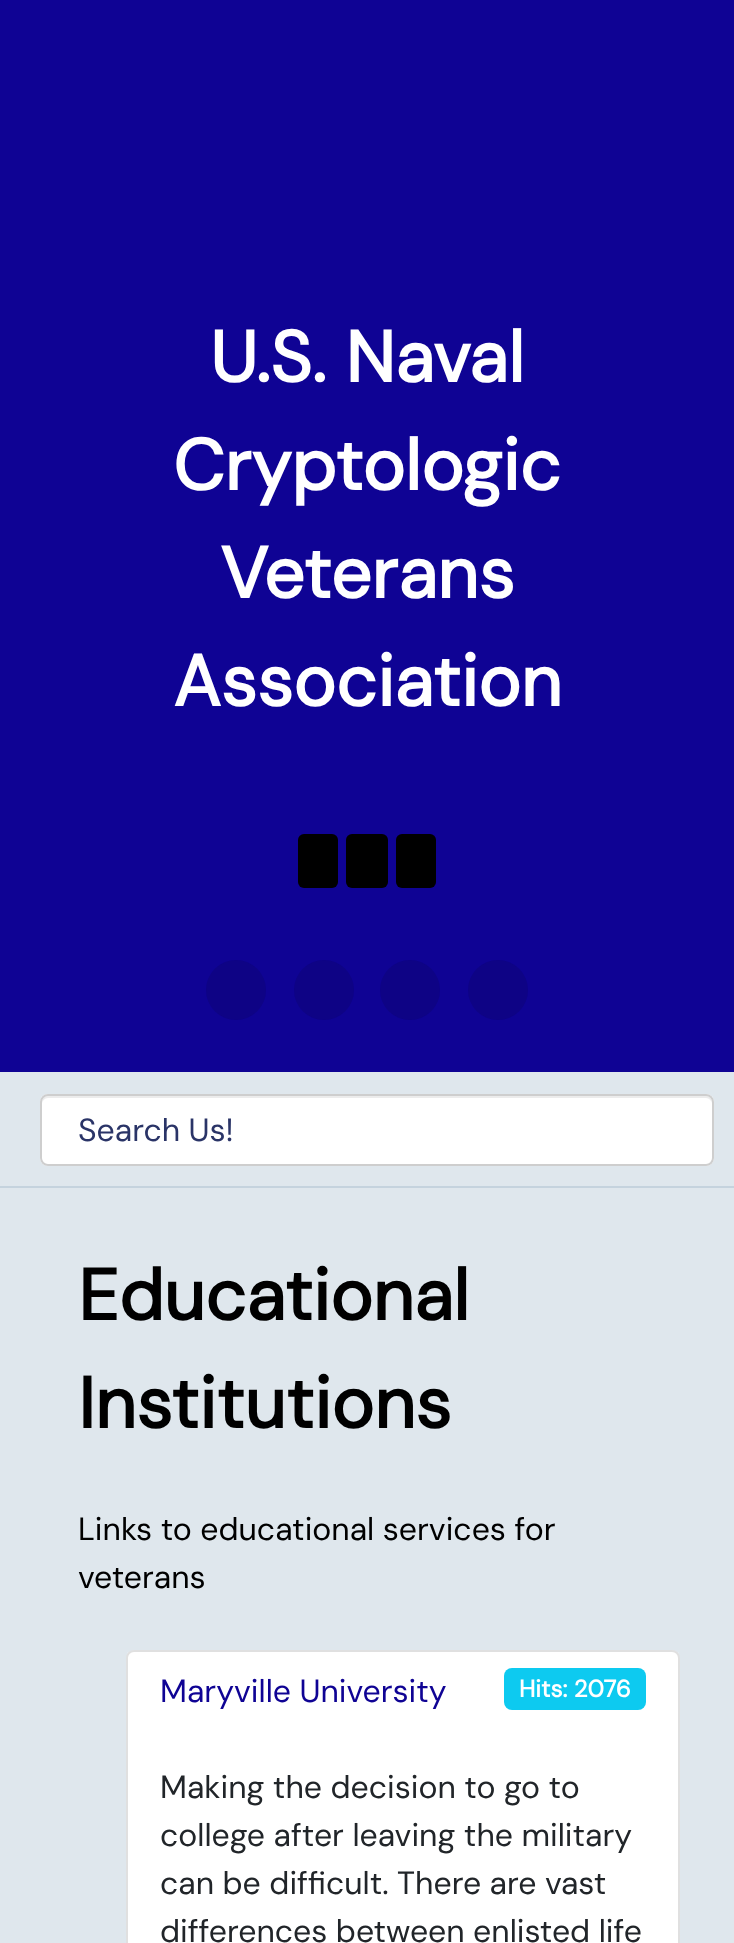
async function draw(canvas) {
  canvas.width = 734;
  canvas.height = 1943;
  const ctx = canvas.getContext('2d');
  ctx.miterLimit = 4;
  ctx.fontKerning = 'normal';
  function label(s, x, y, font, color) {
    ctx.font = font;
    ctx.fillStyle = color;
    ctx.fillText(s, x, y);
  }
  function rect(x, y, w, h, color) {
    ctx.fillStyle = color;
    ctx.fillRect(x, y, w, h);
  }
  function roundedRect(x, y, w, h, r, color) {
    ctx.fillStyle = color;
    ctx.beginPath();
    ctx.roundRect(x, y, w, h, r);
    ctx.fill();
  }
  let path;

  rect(0, 0, 734, 1943, '#dfe7ed');
  rect(0, 0, 734, 1072, '#0f0394');
  label('U.S. Naval', 210, 382, 'bold 72px DM Sans', '#fff');
  label('Cryptologic', 173, 490, 'bold 72px DM Sans', '#fff');
  label('Veterans', 220, 598, 'bold 72px DM Sans', '#fff');
  label('Association', 173, 706, 'bold 72px DM Sans', '#fff');
  roundedRect(298, 834, 40, 54, 6, '#000');
  roundedRect(346, 834, 42, 54, 6, '#000');
  roundedRect(396, 834, 40, 54, 6, '#000');
  ctx.fillStyle = '#0e0385';
  ctx.beginPath();
  ctx.arc(236, 990, 30, 0, 2 * Math.PI);
  ctx.fill();
  ctx.beginPath();
  ctx.arc(324, 990, 30, 0, 2 * Math.PI);
  ctx.fill();
  ctx.beginPath();
  ctx.arc(410, 990, 30, 0, 2 * Math.PI);
  ctx.fill();
  ctx.beginPath();
  ctx.arc(498, 990, 30, 0, 2 * Math.PI);
  ctx.fill();
  rect(0, 1186, 734, 2, '#c5d3de');
  roundedRect(40, 1094, 674, 72, 8, '#fff');
  ctx.fillStyle = '#ececec';
  path = new Path2D('M48 1098H706C709 1098 712 1101 712 1104C712 1100 711 1096 706 1096H48C43 1096 42 1100 42 1104C42 1101 45 1098 48 1098Z');
  ctx.fill(path);
  ctx.beginPath();
  ctx.roundRect(41, 1095, 672, 70, 7);
  ctx.strokeStyle = '#cecece';
  ctx.lineWidth = 2;
  ctx.stroke();
  label('Search Us!', 78, 1141, '32px DM Sans', '#2a3467');
  label('Educational', 78, 1320, 'bold 72px DM Sans', '#000');
  label('Institutions', 78, 1428, 'bold 72px DM Sans', '#000');
  label('Links to educational services for', 78, 1540, '32px DM Sans', '#000');
  label('veterans', 78, 1588, '32px DM Sans', '#000');
  roundedRect(126, 1650, 554, 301, 8, '#fff');
  ctx.beginPath();
  ctx.roundRect(127, 1651, 552, 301, 7);
  ctx.strokeStyle = '#0000001f';
  ctx.stroke();
  label('Maryville University', 160, 1702, '32px DM Sans', '#0f0394');
  roundedRect(504, 1668, 142, 42, 8, '#0dcaf0');
  label('Hits: 2076', 519, 1697, 'bold 24px DM Sans', '#fff');
  label('Making the decision to go to', 160, 1798, '32px DM Sans', '#212529');
  label('college after leaving the military', 160, 1846, '32px DM Sans', '#212529');
  label('can be difficult. There are vast', 160, 1894, '32px DM Sans', '#212529');
  label('differences between enlisted life', 160, 1942, '32px DM Sans', '#212529');
}

draw(document.querySelector('canvas'));
